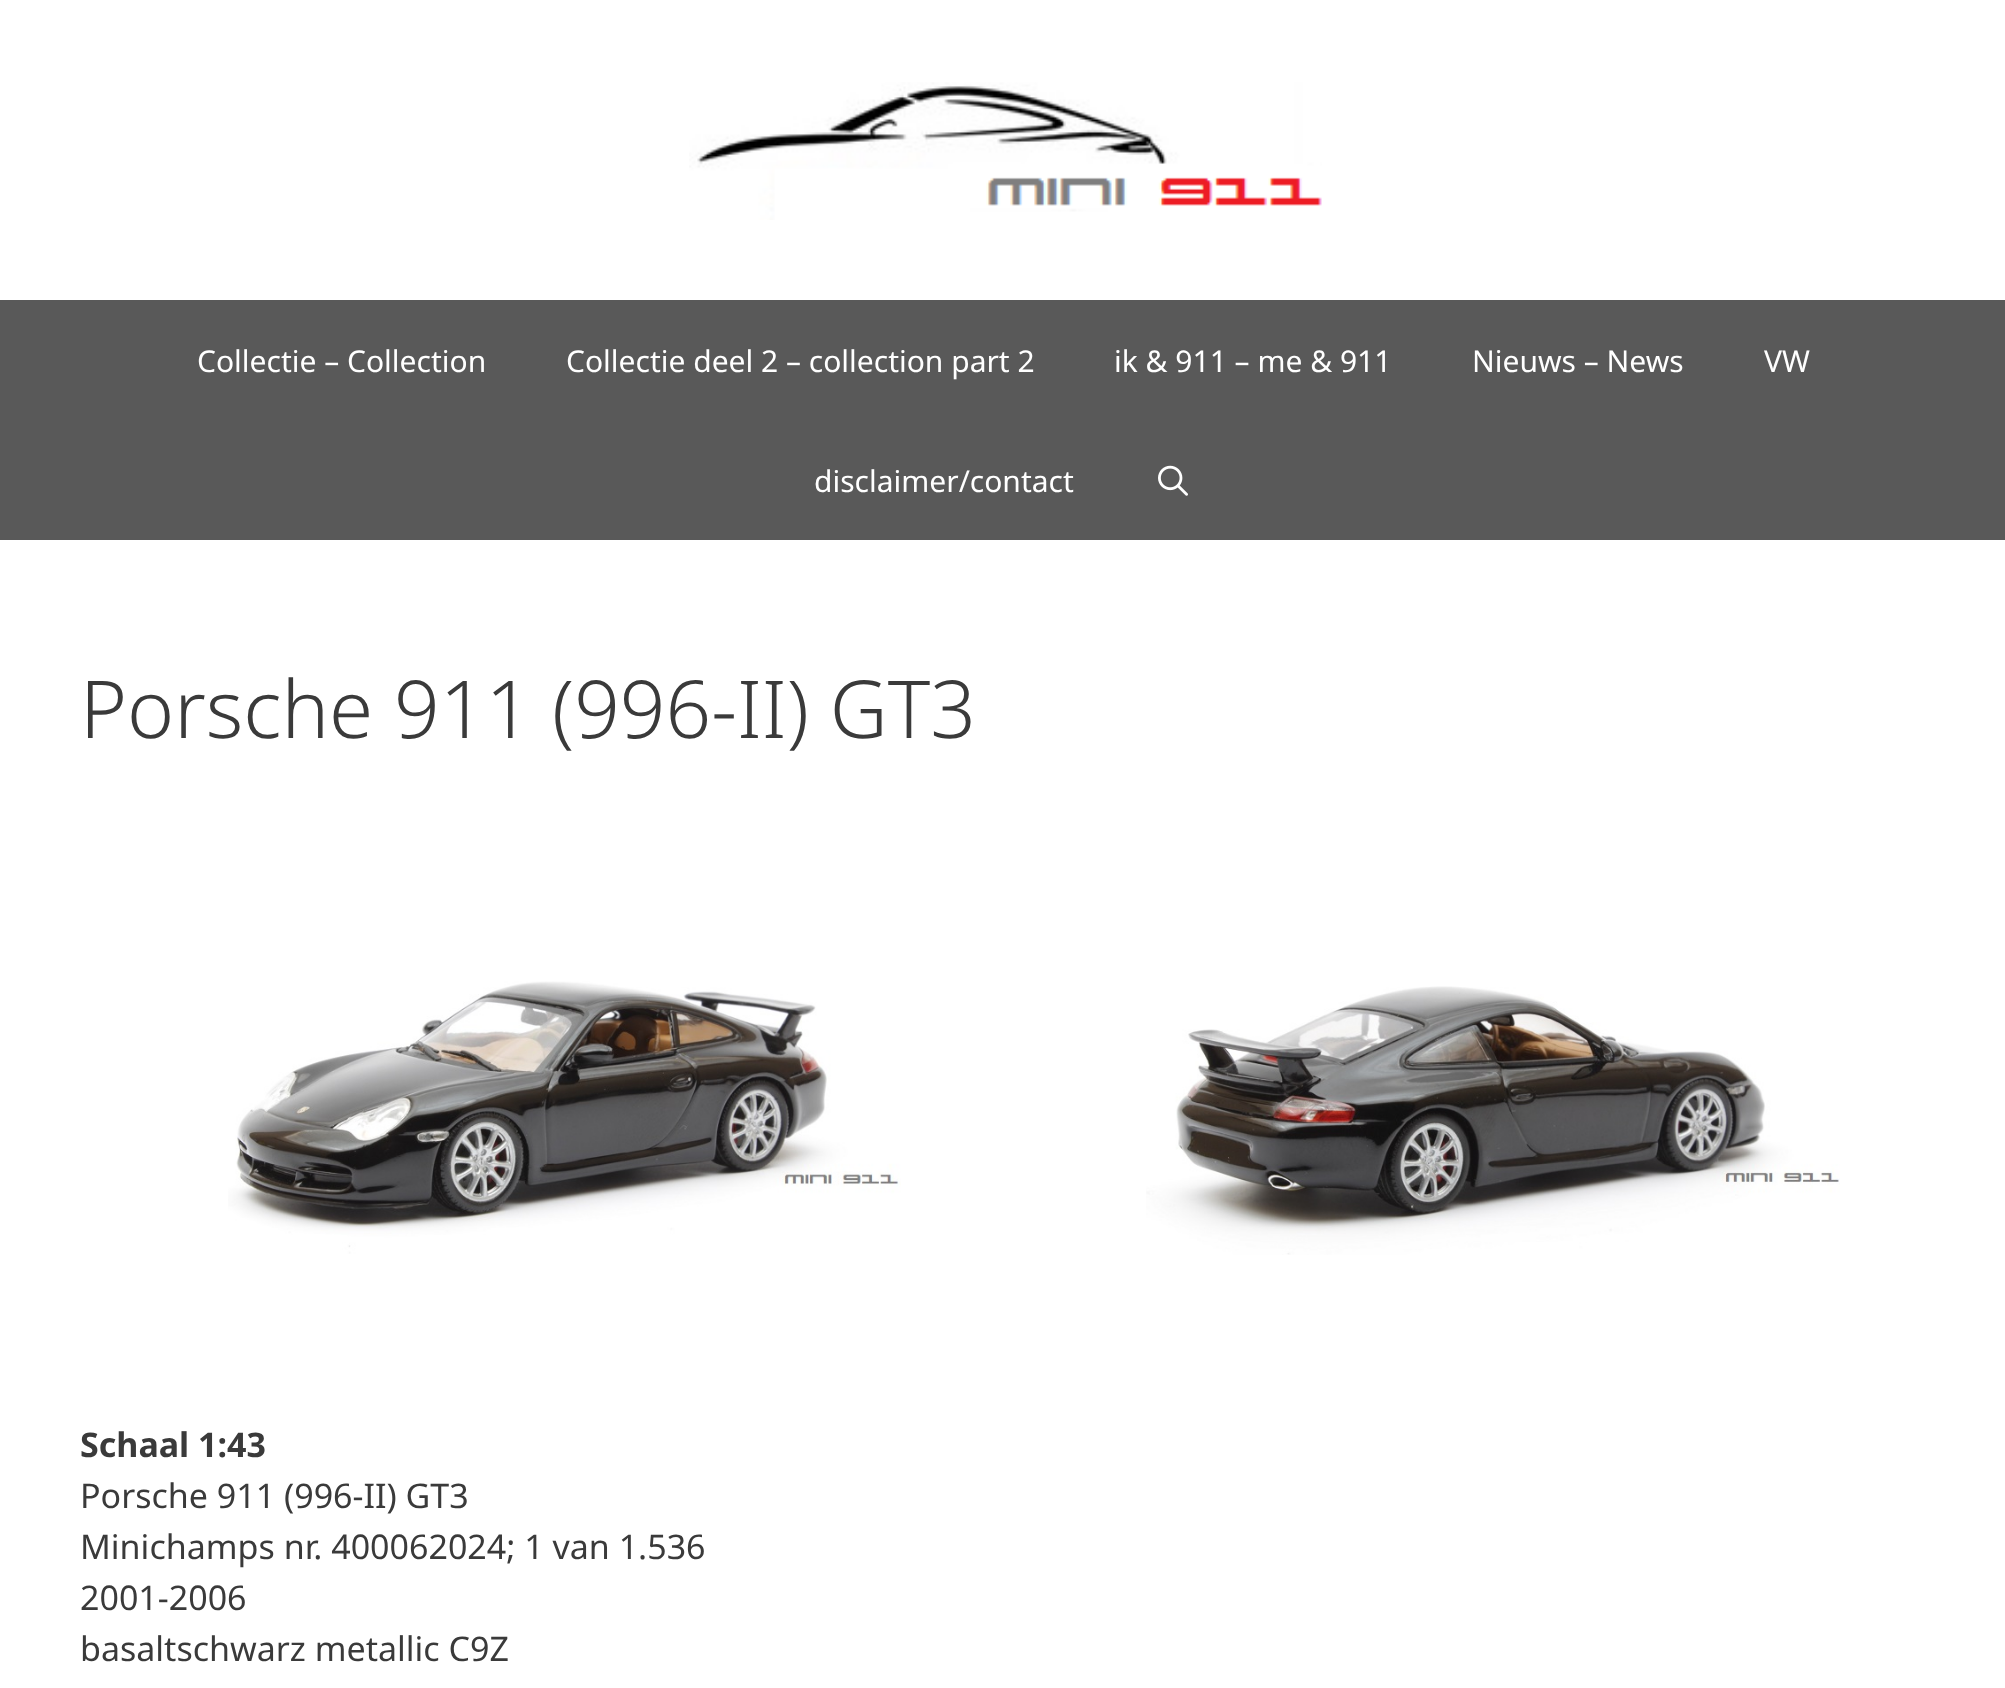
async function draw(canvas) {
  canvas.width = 2005;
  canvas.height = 1688;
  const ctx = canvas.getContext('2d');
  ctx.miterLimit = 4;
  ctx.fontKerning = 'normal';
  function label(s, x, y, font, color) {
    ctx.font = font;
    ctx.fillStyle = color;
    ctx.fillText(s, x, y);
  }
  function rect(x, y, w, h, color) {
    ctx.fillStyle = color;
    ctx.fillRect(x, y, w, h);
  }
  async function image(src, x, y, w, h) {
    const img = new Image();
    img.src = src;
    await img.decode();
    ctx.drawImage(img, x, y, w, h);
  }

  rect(0, 0, 2005, 1688, '#fff');
  await image('assets/img1.png', 689, 82, 633, 138);
  rect(0, 300, 2005, 240, '#595959');
  label('Collectie – Collection', 197, 372, '30px Noto Sans', '#fff');
  label('Collectie deel 2 – collection part 2', 566, 372, '30px Noto Sans', '#fff');
  label('ik & 911 – me & 911', 1114, 372, '30px Noto Sans', '#fff');
  label('Nieuws – News', 1472, 372, '30px Noto Sans', '#fff');
  label('VW', 1764, 372, '30px Noto Sans', '#fff');
  label('disclaimer/contact', 814, 492, '30px Noto Sans', '#fff');
  await image('assets/img2.png', 1158, 465, 30, 31);
  label('Porsche 911 (996-II) GT3', 80, 738, '300 80px Noto Sans', '#3a3a3a');
  await image('assets/img3.png', 228, 981, 673, 273);
  await image('assets/img4.png', 1146, 986, 694, 269);
  label('Schaal 1:43', 80, 1457, 'bold 34px Noto Sans', '#3a3a3a');
  label('Porsche 911 (996-II) GT3', 80, 1508, '34px Noto Sans', '#3a3a3a');
  label('Minichamps nr. 400062024; 1 van 1.536', 80, 1559, '34px Noto Sans', '#3a3a3a');
  label('2001-2006', 80, 1610, '34px Noto Sans', '#3a3a3a');
  label('basaltschwarz metallic C9Z', 80, 1661, '34px Noto Sans', '#3a3a3a');
}

draw(document.querySelector('canvas'));
